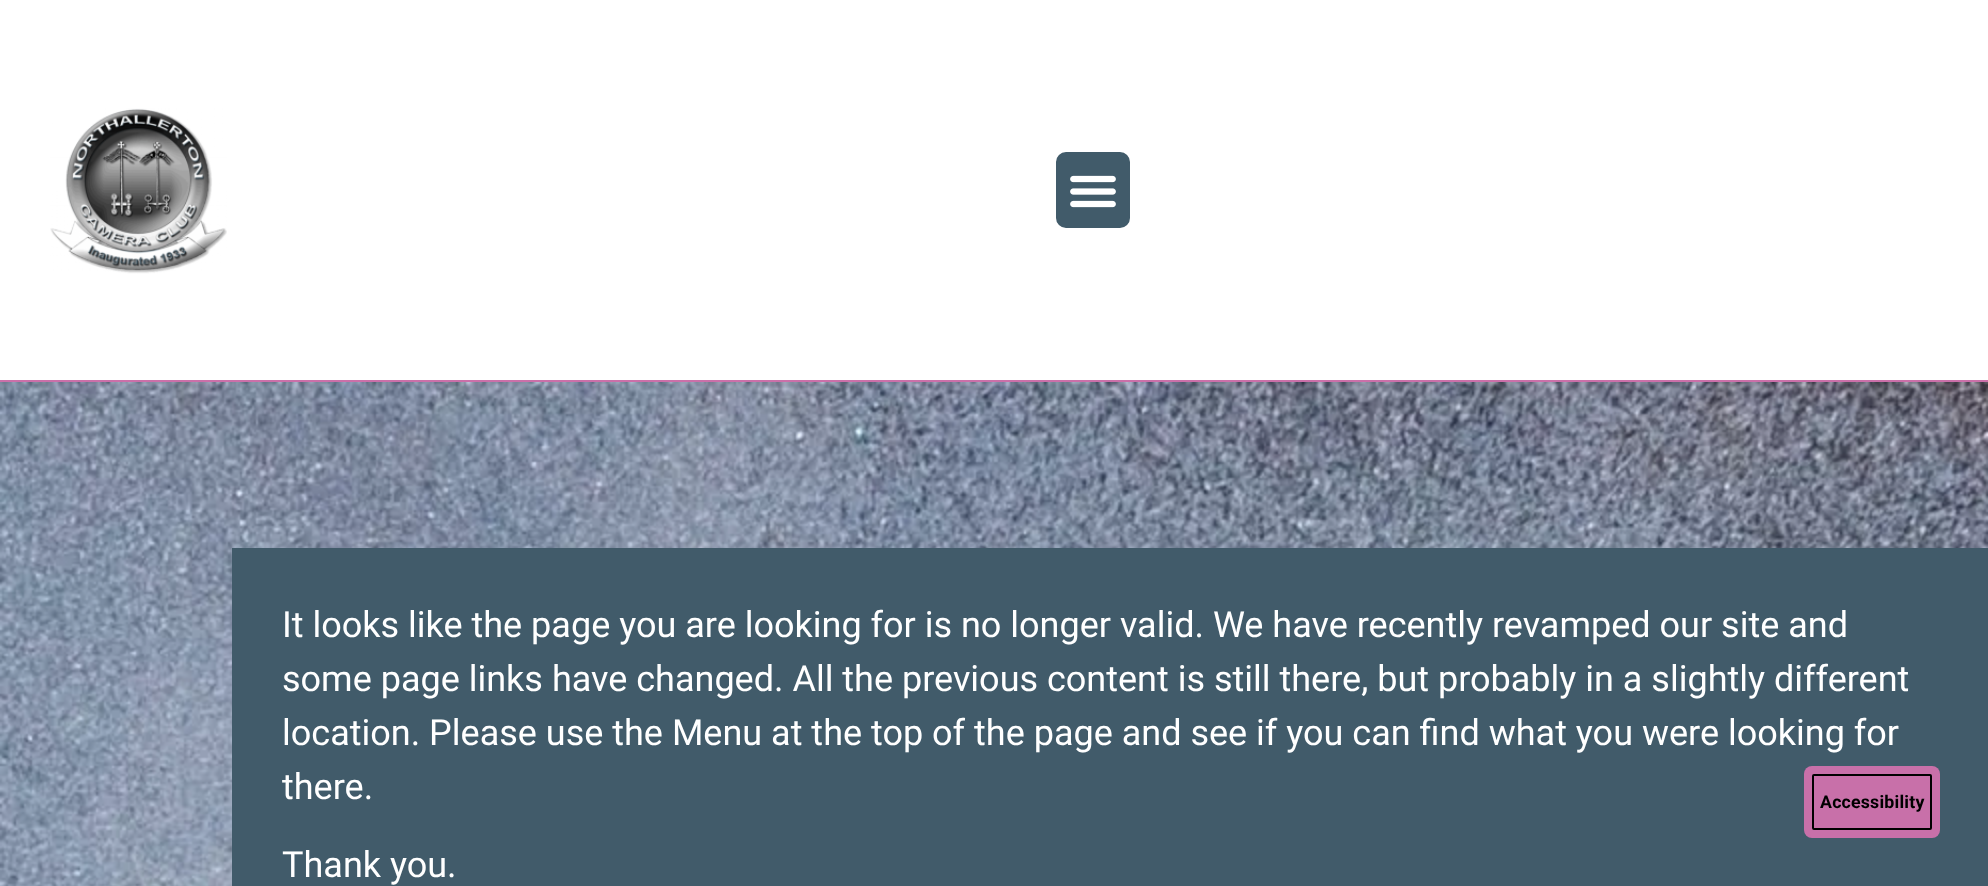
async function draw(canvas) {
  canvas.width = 1988;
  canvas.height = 886;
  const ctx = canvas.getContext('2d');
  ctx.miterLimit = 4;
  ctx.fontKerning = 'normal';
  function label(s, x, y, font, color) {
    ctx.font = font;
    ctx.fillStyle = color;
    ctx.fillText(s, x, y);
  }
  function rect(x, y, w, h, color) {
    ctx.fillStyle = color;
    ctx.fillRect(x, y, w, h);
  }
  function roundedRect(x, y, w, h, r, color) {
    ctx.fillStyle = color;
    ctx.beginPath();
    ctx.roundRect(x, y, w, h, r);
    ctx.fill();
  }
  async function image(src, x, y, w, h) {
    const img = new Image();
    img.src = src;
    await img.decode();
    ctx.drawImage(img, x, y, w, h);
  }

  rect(0, 0, 1988, 886, '#fff');
  rect(0, 380, 1988, 2, '#cb70a9');
  await image('assets/img1.png', 50, 108, 177, 166);
  ctx.fillStyle = '#415b6a';
  ctx.beginPath();
  ctx.roundRect(1053, 149, 80, 82, 13);
  ctx.fill();
  ctx.strokeStyle = '#fff';
  ctx.lineWidth = 6;
  ctx.stroke();
  await image('assets/img2.png', 1070, 175, 46, 33);
  await image('assets/img3.png', 0, 382, 1988, 504);
  rect(232, 548, 1756, 338, '#415b6a');
  label('It looks like the page you are looking for is no longer valid. We have recently revamped our site and', 282, 637, '36px Roboto', '#fff');
  label('some page links have changed. All the previous content is still there, but probably in a slightly different', 282, 691, '36px Roboto', '#fff');
  label('location. Please use the Menu at the top of the page and see if you can find what you were looking for', 282, 745, '36px Roboto', '#fff');
  label('there.', 282, 799, '36px Roboto', '#fff');
  label('Thank you.', 282, 877, '36px Roboto', '#fff');
  roundedRect(1804, 766, 136, 72, 8, '#c870a9');
  ctx.beginPath();
  ctx.roundRect(1813, 775, 118, 54, 1);
  ctx.strokeStyle = '#000';
  ctx.lineWidth = 2;
  ctx.stroke();
  ctx.letterSpacing = '0.2px';
  label('Accessibility', 1820, 808, 'bold 17.75px Roboto', '#000');
}

draw(document.querySelector('canvas'));
